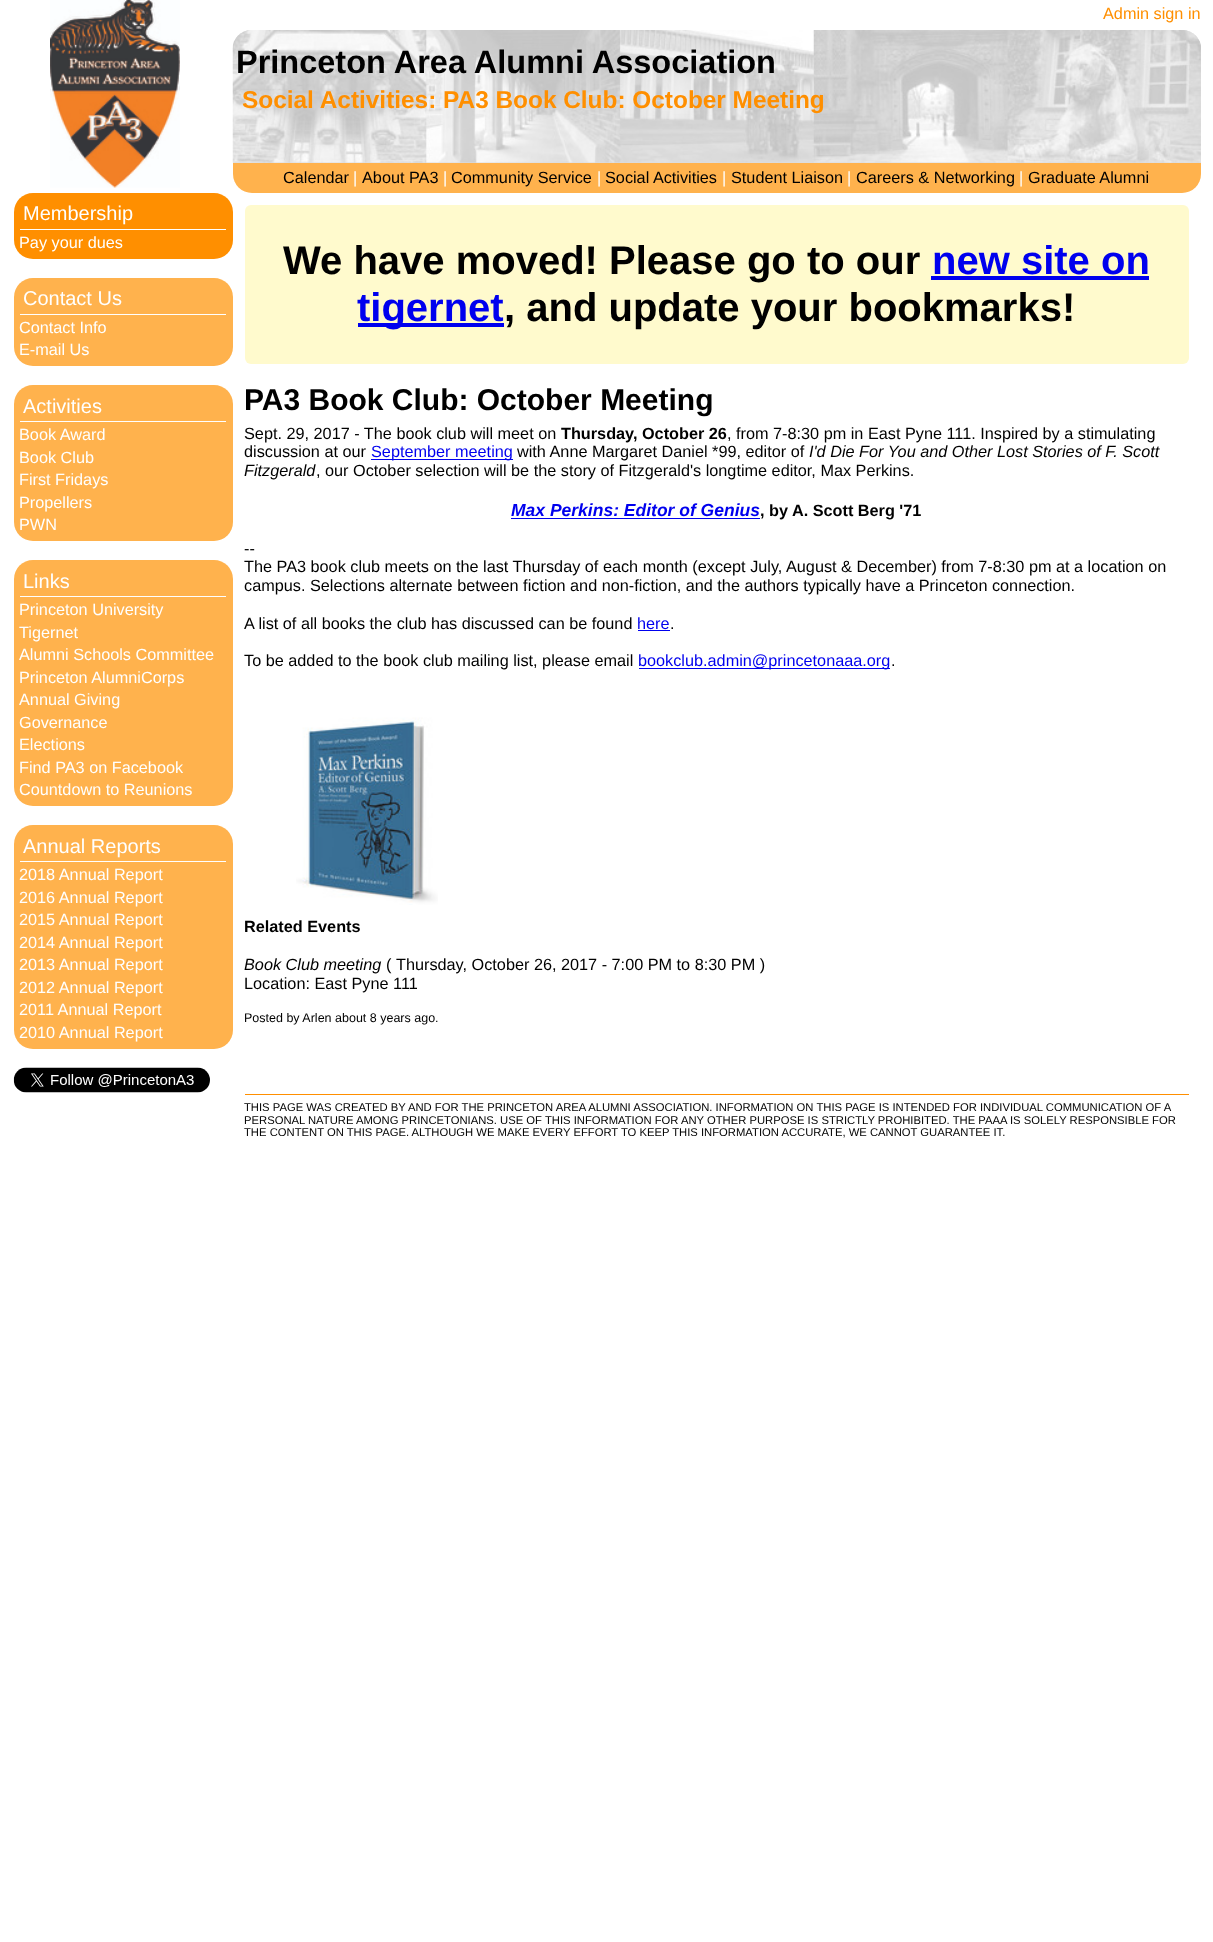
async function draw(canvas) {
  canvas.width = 1213;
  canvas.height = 1942;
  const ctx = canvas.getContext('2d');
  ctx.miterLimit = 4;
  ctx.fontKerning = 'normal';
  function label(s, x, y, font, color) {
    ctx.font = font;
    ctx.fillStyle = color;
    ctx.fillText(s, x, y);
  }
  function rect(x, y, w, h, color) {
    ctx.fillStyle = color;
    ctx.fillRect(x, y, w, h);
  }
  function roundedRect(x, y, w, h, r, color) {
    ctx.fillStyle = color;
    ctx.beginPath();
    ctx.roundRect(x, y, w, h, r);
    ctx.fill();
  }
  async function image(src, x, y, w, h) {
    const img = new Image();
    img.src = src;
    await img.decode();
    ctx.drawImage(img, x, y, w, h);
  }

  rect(0, 0, 1213, 1942, '#fff');
  await image('assets/img1.png', 50, 0, 130, 188);
  label('Admin sign in', 1103, 19, '16.25px Liberation Sans', '#ff8f00');
  ctx.fillStyle = '#ddd';
  ctx.beginPath();
  ctx.roundRect(233, 30, 968, 133, [19, 19, 0, 0]);
  ctx.fill();
  await image('assets/img2.png', 232, 30, 969, 133);
  label('Princeton Area Alumni Association', 236, 73, 'bold 32.5px Liberation Sans', '#000');
  label('Social Activities: PA3 Book Club: October Meeting', 242, 108, 'bold 24.4px Liberation Sans', '#ff8f00');
  ctx.fillStyle = '#ffb24d';
  ctx.beginPath();
  ctx.roundRect(233, 163, 968, 30, [0, 0, 19, 19]);
  ctx.fill();
  label('Calendar', 283, 183, '16.25px Liberation Sans', '#000');
  label('|', 353, 183, '16.25px Liberation Sans', '#fff');
  label('About PA3', 362, 183, '16.25px Liberation Sans', '#000');
  label('|', 443, 183, '16.25px Liberation Sans', '#fff');
  label('Community Service', 451, 183, '16.25px Liberation Sans', '#000');
  label('|', 597, 183, '16.25px Liberation Sans', '#fff');
  label('Social Activities', 605, 183, '16.25px Liberation Sans', '#000');
  label('|', 722, 183, '16.25px Liberation Sans', '#fff');
  label('Student Liaison', 731, 183, '16.25px Liberation Sans', '#000');
  label('|', 847, 183, '16.25px Liberation Sans', '#fff');
  label('Careers & Networking', 856, 183, '16.25px Liberation Sans', '#000');
  label('|', 1019, 183, '16.25px Liberation Sans', '#fff');
  label('Graduate Alumni', 1028, 183, '16.25px Liberation Sans', '#000');
  roundedRect(14, 193, 219, 66, 19, '#ff8f00');
  rect(20, 229, 206, 1, '#fff');
  label('Membership', 23, 220, '20px Liberation Sans', '#fff');
  label('Pay your dues', 19, 248, '16.25px Liberation Sans', '#fff');
  roundedRect(14, 278, 219, 88, 19, '#ffb24d');
  rect(20, 314, 206, 1, '#fff');
  label('Contact Us', 23, 305, '20px Liberation Sans', '#fff');
  label('Contact Info', 19, 333, '16.25px Liberation Sans', '#fff');
  label('E-mail Us', 19, 355, '16.25px Liberation Sans', '#fff');
  roundedRect(14, 385, 219, 156, 19, '#ffb24d');
  rect(20, 421, 206, 1, '#fff');
  label('Activities', 23, 413, '20px Liberation Sans', '#fff');
  label('Book Award', 19, 440, '16.25px Liberation Sans', '#fff');
  label('Book Club', 19, 463, '16.25px Liberation Sans', '#fff');
  label('First Fridays', 19, 485, '16.25px Liberation Sans', '#fff');
  label('Propellers', 19, 508, '16.25px Liberation Sans', '#fff');
  label('PWN', 19, 530, '16.25px Liberation Sans', '#fff');
  roundedRect(14, 560, 219, 246, 19, '#ffb24d');
  rect(20, 596, 206, 1, '#fff');
  label('Links', 23, 588, '20px Liberation Sans', '#fff');
  label('Princeton University', 19, 615, '16.25px Liberation Sans', '#fff');
  label('Tigernet', 19, 638, '16.25px Liberation Sans', '#fff');
  label('Alumni Schools Committee', 19, 660, '16.25px Liberation Sans', '#fff');
  label('Princeton AlumniCorps', 19, 683, '16.25px Liberation Sans', '#fff');
  label('Annual Giving', 19, 705, '16.25px Liberation Sans', '#fff');
  label('Governance', 19, 728, '16.25px Liberation Sans', '#fff');
  label('Elections', 19, 750, '16.25px Liberation Sans', '#fff');
  label('Find PA3 on Facebook', 19, 773, '16.25px Liberation Sans', '#fff');
  label('Countdown to Reunions', 19, 795, '16.25px Liberation Sans', '#fff');
  roundedRect(14, 825, 219, 224, 19, '#ffb24d');
  rect(20, 861, 206, 1, '#fff');
  label('Annual Reports', 23, 853, '20px Liberation Sans', '#fff');
  label('2018 Annual Report', 19, 880, '16.25px Liberation Sans', '#fff');
  label('2016 Annual Report', 19, 903, '16.25px Liberation Sans', '#fff');
  label('2015 Annual Report', 19, 925, '16.25px Liberation Sans', '#fff');
  label('2014 Annual Report', 19, 948, '16.25px Liberation Sans', '#fff');
  label('2013 Annual Report', 19, 970, '16.25px Liberation Sans', '#fff');
  label('2012 Annual Report', 19, 993, '16.25px Liberation Sans', '#fff');
  label('2011 Annual Report', 19, 1015, '16.25px Liberation Sans', '#fff');
  label('2010 Annual Report', 19, 1038, '16.25px Liberation Sans', '#fff');
  await image('assets/img3.png', 13, 1067, 197, 26);
  roundedRect(245, 205, 944, 159, 6, '#fffacd');
  label('We have moved! Please go to our', 283, 274, 'bold 40px Liberation Sans', '#000');
  label('new site on', 932, 274, 'bold 40px Liberation Sans', '#00e');
  rect(931, 276, 218, 4, '#00e');
  rect(358, 323, 146, 4, '#00e');
  label('tigernet', 357, 321, 'bold 40px Liberation Sans', '#00e');
  label(', and update your bookmarks!', 504, 321, 'bold 40px Liberation Sans', '#000');
  label('PA3 Book Club: October Meeting', 244, 410, 'bold 30px Liberation Sans', '#000');
  label('Sept. 29, 2017 - The book club will meet on', 244, 439, '16.25px Liberation Sans', '#000');
  label('Thursday, October 26', 561, 439, 'bold 16.25px Liberation Sans', '#000');
  label(', from 7-8:30 pm in East Pyne 111. Inspired by a stimulating', 727, 439, '16.25px Liberation Sans', '#000');
  label('discussion at our', 244, 457, '16.25px Liberation Sans', '#000');
  rect(371, 459, 142, 1, '#00e');
  label('September meeting', 371, 457, '16.25px Liberation Sans', '#00e');
  label('with Anne Margaret Daniel *99, editor of', 517, 457, '16.25px Liberation Sans', '#000');
  label('I\'d Die For You and Other Lost Stories of F. Scott', 809, 457, 'italic 16.25px Liberation Sans', '#000');
  label('Fitzgerald', 244, 476, 'italic 16.25px Liberation Sans', '#000');
  label(', our October selection will be the story of Fitzgerald\'s longtime editor, Max Perkins.', 316, 476, '16.25px Liberation Sans', '#000');
  label('Max Perkins: Editor of Genius', 511, 516, 'italic bold 17.5px Liberation Sans', '#00e');
  label(', by A. Scott Berg \'71', 760, 516, 'bold 16.25px Liberation Sans', '#000');
  rect(511, 518, 249, 1, '#00e');
  label('--', 244, 554, '16.25px Liberation Sans', '#000');
  label('The PA3 book club meets on the last Thursday of each month (except July, August & December) from 7-8:30 pm at a location on', 244, 572, '16.25px Liberation Sans', '#000');
  label('campus. Selections alternate between fiction and non-fiction, and the authors typically have a Princeton connection.', 244, 591, '16.25px Liberation Sans', '#000');
  label('A list of all books the club has discussed can be found', 244, 629, '16.25px Liberation Sans', '#000');
  label('here', 637, 629, '16.25px Liberation Sans', '#00e');
  rect(638, 630, 32, 1, '#00e');
  label('.', 670, 629, '16.25px Liberation Sans', '#000');
  label('To be added to the book club mailing list, please email', 244, 666, '16.25px Liberation Sans', '#000');
  rect(639, 668, 251, 1, '#00e');
  label('bookclub.admin@princetonaaa.org', 638, 666, '16.25px Liberation Sans', '#00e');
  label('.', 891, 666, '16.25px Liberation Sans', '#000');
  await image('assets/img4.png', 296, 717, 142, 188);
  label('Related Events', 244, 932, 'bold 16.25px Liberation Sans', '#000');
  label('Book Club meeting', 244, 970, 'italic 16.25px Liberation Sans', '#000');
  label('(', 386, 970, '16.25px Liberation Sans', '#000');
  label('Thursday, October 26, 2017 - 7:00 PM to 8:30 PM )', 396, 970, '16.25px Liberation Sans', '#000');
  label('Location: East Pyne 111', 244, 989, '16.25px Liberation Sans', '#000');
  label('Posted by Arlen about 8 years ago.', 244, 1022, '12.5px Liberation Sans', '#000');
  rect(245, 1094, 944, 1, '#ff8f00');
  label('THIS PAGE WAS CREATED BY AND FOR THE PRINCETON AREA ALUMNI ASSOCIATION. INFORMATION ON THIS PAGE IS INTENDED FOR INDIVIDUAL COMMUNICATION OF A', 244, 1111, '11.25px Liberation Sans', '#000');
  label('PERSONAL NATURE AMONG PRINCETONIANS. USE OF THIS INFORMATION FOR ANY OTHER PURPOSE IS STRICTLY PROHIBITED. THE PAAA IS SOLELY RESPONSIBLE FOR', 244, 1124, '11.25px Liberation Sans', '#000');
  label('THE CONTENT ON THIS PAGE. ALTHOUGH WE MAKE EVERY EFFORT TO KEEP THIS INFORMATION ACCURATE, WE CANNOT GUARANTEE IT.', 244, 1136, '11.25px Liberation Sans', '#000');
}

draw(document.querySelector('canvas'));
